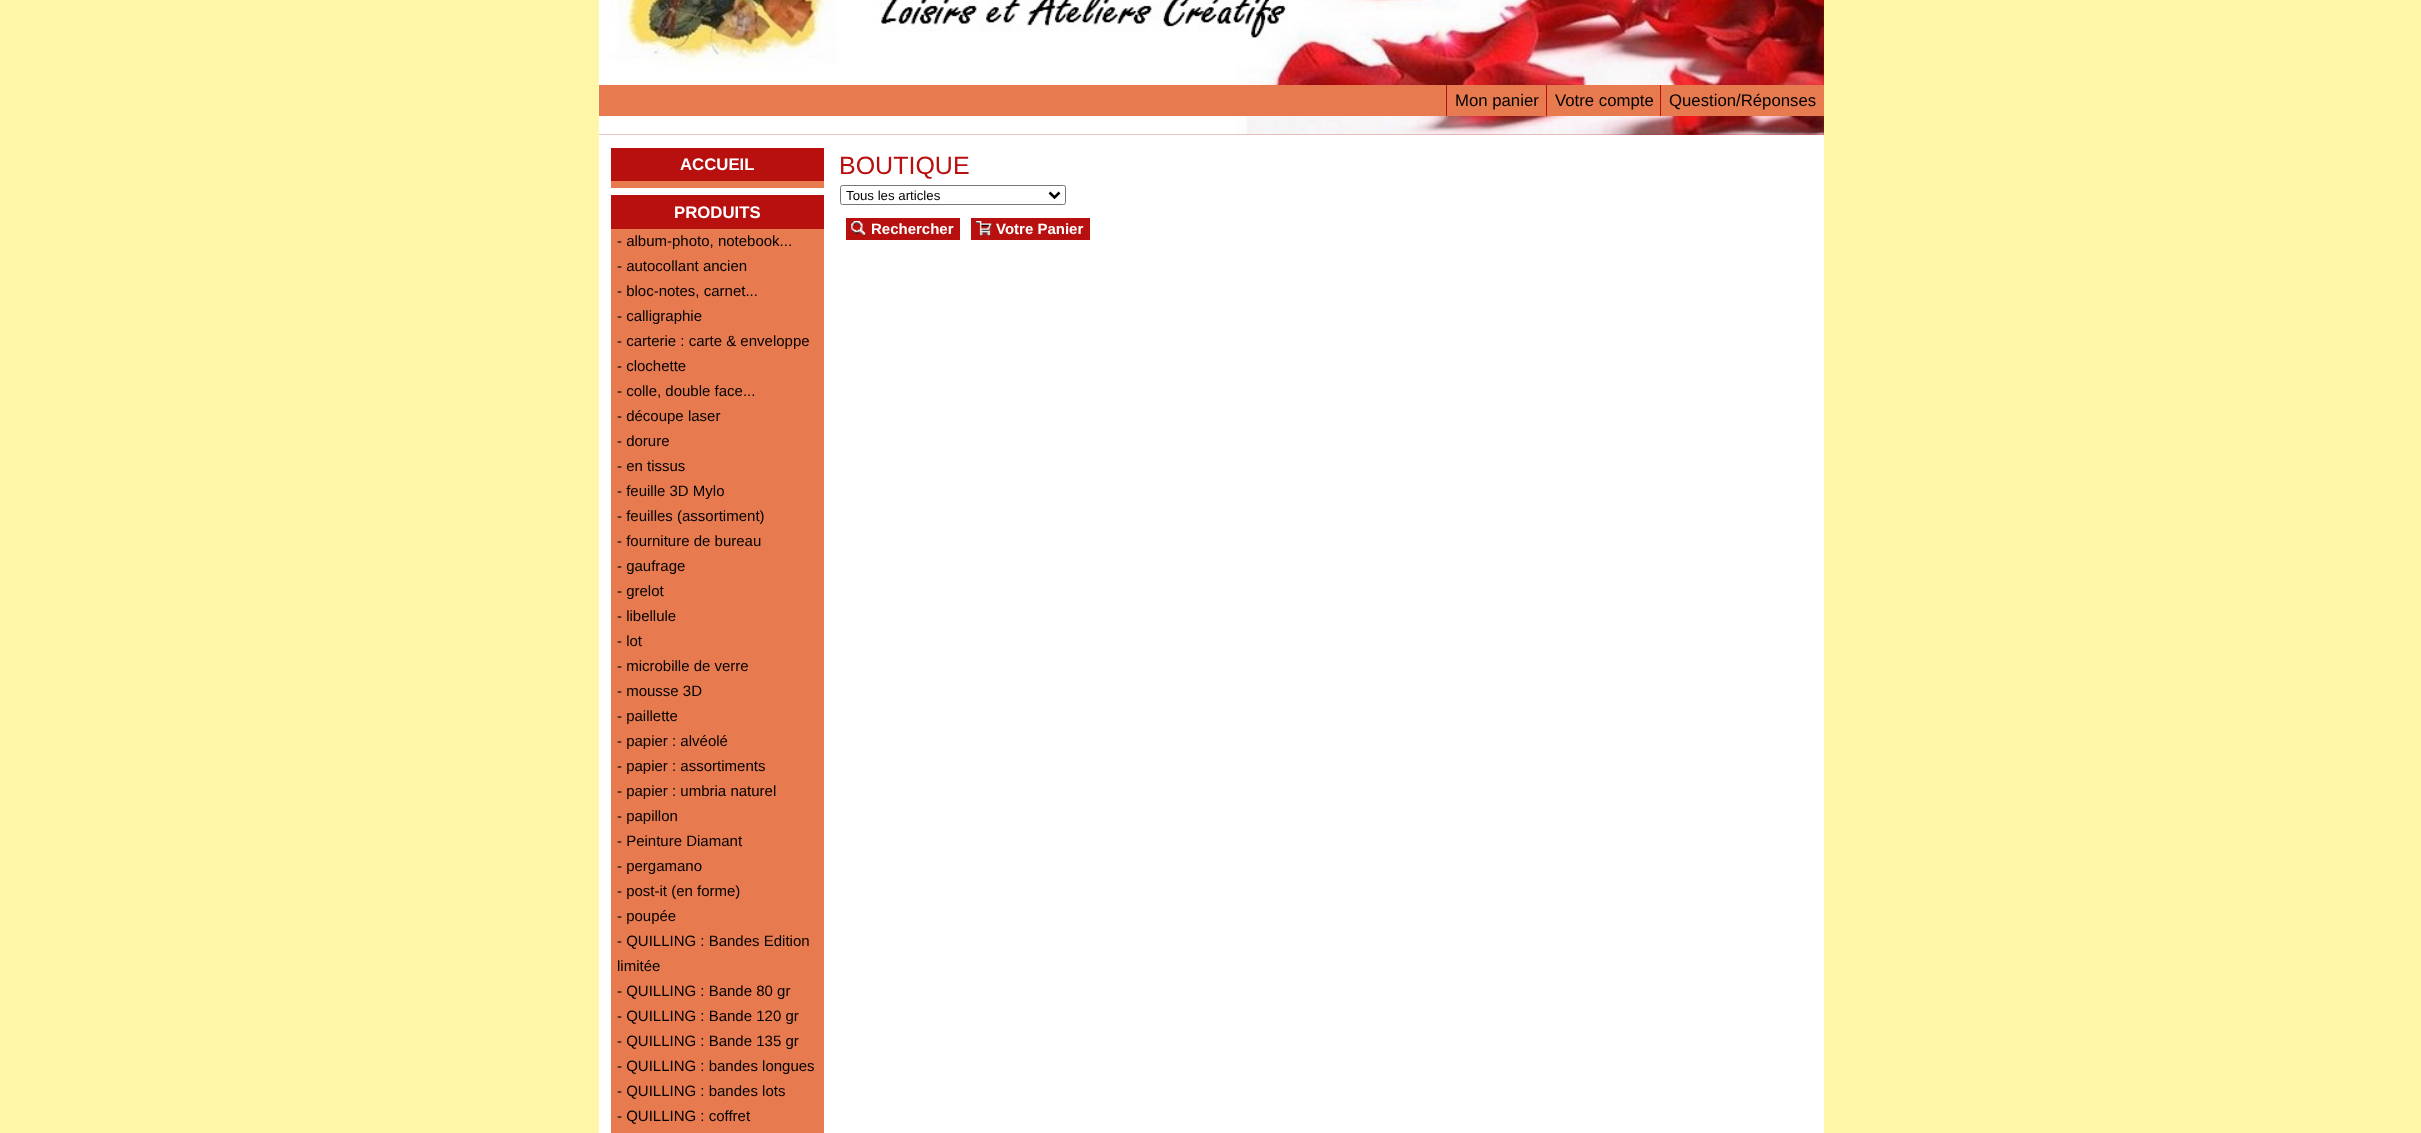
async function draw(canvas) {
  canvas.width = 2421;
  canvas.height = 1133;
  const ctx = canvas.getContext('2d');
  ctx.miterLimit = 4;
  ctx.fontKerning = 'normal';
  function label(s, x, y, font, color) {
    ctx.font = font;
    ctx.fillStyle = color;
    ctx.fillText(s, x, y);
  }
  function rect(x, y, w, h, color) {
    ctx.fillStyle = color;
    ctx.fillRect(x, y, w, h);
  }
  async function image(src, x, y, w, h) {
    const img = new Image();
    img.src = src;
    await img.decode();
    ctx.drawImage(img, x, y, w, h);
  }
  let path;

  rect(0, 0, 2421, 1133, '#fff6a8');
  rect(599, 135, 1225, 998, '#fff');
  rect(599, 0, 1225, 135, '#b80f0f');
  await image('assets/img1.png', 598, 0, 1226, 135);
  rect(599, 85, 1225, 31, '#e87a4f');
  rect(1446, 85, 1, 31, '#b80f0f');
  label('Mon panier', 1455, 106, '16.75px Liberation Sans', '#000');
  rect(1546, 85, 1, 31, '#b80f0f');
  label('Votre compte', 1555, 106, '16.75px Liberation Sans', '#000');
  rect(1660, 85, 1, 31, '#b80f0f');
  label('Question/Réponses', 1669, 106, '16.75px Liberation Sans', '#000');
  rect(611, 181, 213, 952, '#e87a4f');
  rect(611, 148, 213, 33, '#b80f0f');
  label('ACCUEIL', 680, 170, 'bold 16.75px Liberation Sans', '#fff');
  rect(611, 188, 213, 7, '#fff');
  rect(611, 195, 213, 34, '#b80f0f');
  label('PRODUITS', 674, 218, 'bold 16.75px Liberation Sans', '#fff');
  label('- album-photo, notebook...', 617, 246, '15px Liberation Sans', '#000');
  label('- autocollant ancien', 617, 271, '15px Liberation Sans', '#000');
  label('- bloc-notes, carnet...', 617, 296, '15px Liberation Sans', '#000');
  label('- calligraphie', 617, 321, '15px Liberation Sans', '#000');
  label('- carterie : carte & enveloppe', 617, 346, '15px Liberation Sans', '#000');
  label('- clochette', 617, 371, '15px Liberation Sans', '#000');
  label('- colle, double face...', 617, 396, '15px Liberation Sans', '#000');
  label('- découpe laser', 617, 421, '15px Liberation Sans', '#000');
  label('- dorure', 617, 446, '15px Liberation Sans', '#000');
  label('- en tissus', 617, 471, '15px Liberation Sans', '#000');
  label('- feuille 3D Mylo', 617, 496, '15px Liberation Sans', '#000');
  label('- feuilles (assortiment)', 617, 521, '15px Liberation Sans', '#000');
  label('- fourniture de bureau', 617, 546, '15px Liberation Sans', '#000');
  label('- gaufrage', 617, 571, '15px Liberation Sans', '#000');
  label('- grelot', 617, 596, '15px Liberation Sans', '#000');
  label('- libellule', 617, 621, '15px Liberation Sans', '#000');
  label('- lot', 617, 646, '15px Liberation Sans', '#000');
  label('- microbille de verre', 617, 671, '15px Liberation Sans', '#000');
  label('- mousse 3D', 617, 696, '15px Liberation Sans', '#000');
  label('- paillette', 617, 721, '15px Liberation Sans', '#000');
  label('- papier : alvéolé', 617, 746, '15px Liberation Sans', '#000');
  label('- papier : assortiments', 617, 771, '15px Liberation Sans', '#000');
  label('- papier : umbria naturel', 617, 796, '15px Liberation Sans', '#000');
  label('- papillon', 617, 821, '15px Liberation Sans', '#000');
  label('- Peinture Diamant', 617, 846, '15px Liberation Sans', '#000');
  label('- pergamano', 617, 871, '15px Liberation Sans', '#000');
  label('- post-it (en forme)', 617, 896, '15px Liberation Sans', '#000');
  label('- poupée', 617, 921, '15px Liberation Sans', '#000');
  label('- QUILLING : Bandes Edition', 617, 946, '15px Liberation Sans', '#000');
  label('limitée', 617, 971, '15px Liberation Sans', '#000');
  label('- QUILLING : Bande 80 gr', 617, 996, '15px Liberation Sans', '#000');
  label('- QUILLING : Bande 120 gr', 617, 1021, '15px Liberation Sans', '#000');
  label('- QUILLING : Bande 135 gr', 617, 1046, '15px Liberation Sans', '#000');
  label('- QUILLING : bandes longues', 617, 1071, '15px Liberation Sans', '#000');
  label('- QUILLING : bandes lots', 617, 1096, '15px Liberation Sans', '#000');
  label('- QUILLING : coffret', 617, 1121, '15px Liberation Sans', '#000');
  label('BOUTIQUE', 839, 174, '25px Liberation Sans', '#b80f0f');
  ctx.beginPath();
  ctx.roundRect(840.5, 185.5, 225, 19, 2);
  ctx.strokeStyle = '#767676';
  ctx.stroke();
  path = new Path2D('M1049.5 192.5L1054.5 197.5L1059.5 192.5');
  ctx.strokeStyle = '#000';
  ctx.lineWidth = 2.5;
  ctx.stroke(path);
  label('Tous les articles', 846, 200, '13.25px Liberation Sans', '#000');
  rect(846, 218, 114, 22, '#b80f0f');
  await image('assets/img2.png', 851, 221, 15, 15);
  label('Rechercher', 871, 234, 'bold 15px Liberation Sans', '#fff');
  rect(971, 218, 119, 22, '#b80f0f');
  await image('assets/img3.png', 976, 221, 16, 15);
  label('Votre Panier', 996, 234, 'bold 15px Liberation Sans', '#fff');
}

draw(document.querySelector('canvas'));
